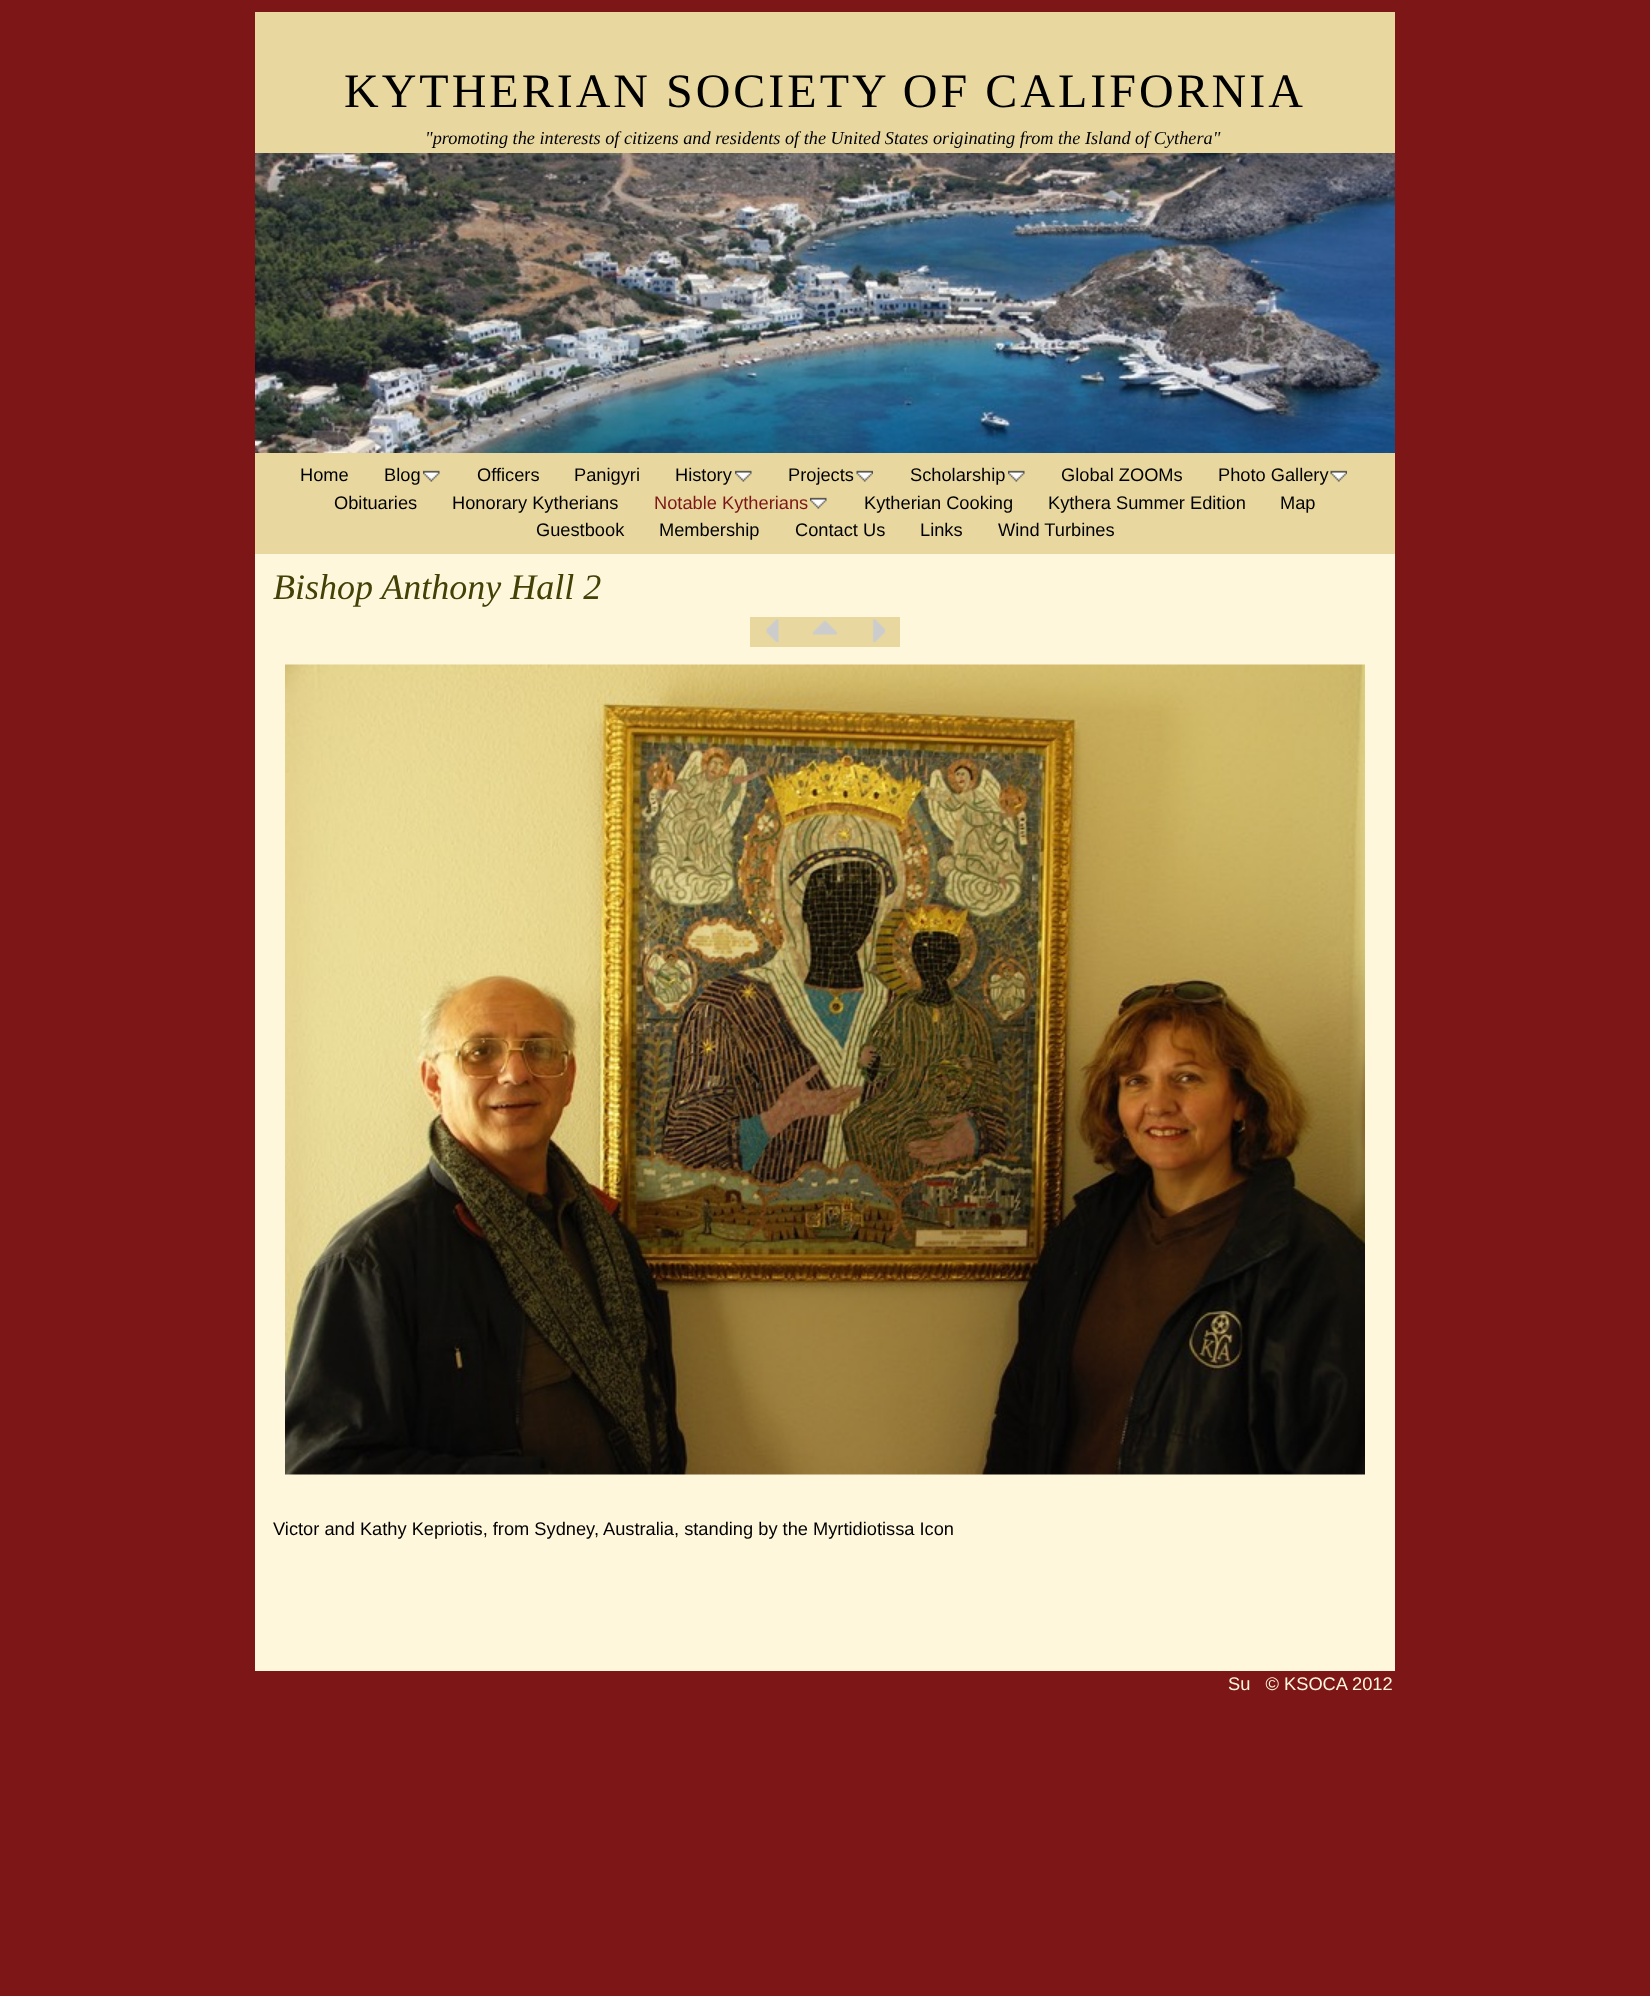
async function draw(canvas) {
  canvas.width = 1650;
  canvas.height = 1996;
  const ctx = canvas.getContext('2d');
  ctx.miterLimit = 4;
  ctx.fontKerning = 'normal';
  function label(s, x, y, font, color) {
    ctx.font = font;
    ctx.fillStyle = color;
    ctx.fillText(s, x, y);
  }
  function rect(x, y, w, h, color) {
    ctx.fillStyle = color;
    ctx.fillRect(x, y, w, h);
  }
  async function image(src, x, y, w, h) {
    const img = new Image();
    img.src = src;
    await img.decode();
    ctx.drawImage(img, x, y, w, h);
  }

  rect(0, 0, 1650, 1996, '#7d1616');
  rect(255, 554, 1140, 1117, '#fff7dc');
  rect(255, 12, 1140, 542, '#e8d8a0');
  ctx.letterSpacing = '3px';
  label('KYTHERIAN SOCIETY OF CALIFORNIA', 344, 107, '48px Liberation Serif', '#000');
  ctx.letterSpacing = '0px';
  label('"promoting the interests of citizens and residents of the United States originating from the Island of Cythera"', 425, 144, 'italic 18.25px Liberation Serif', '#000');
  await image('assets/img1.png', 255, 153, 1140, 300);
  label('Home', 300, 481, '18.25px Liberation Sans', '#000');
  label('Blog', 384, 481, '18.25px Liberation Sans', '#000');
  await image('assets/img2.png', 423, 470, 17, 12);
  label('Officers', 477, 481, '18.25px Liberation Sans', '#000');
  label('Panigyri', 574, 481, '18.25px Liberation Sans', '#000');
  label('History', 675, 481, '18.25px Liberation Sans', '#000');
  await image('assets/img2.png', 735, 470, 17, 12);
  label('Projects', 788, 481, '18.25px Liberation Sans', '#000');
  await image('assets/img3.png', 856, 470, 17, 12);
  label('Scholarship', 910, 481, '18.25px Liberation Sans', '#000');
  await image('assets/img4.png', 1008, 470, 17, 12);
  label('Global ZOOMs', 1061, 481, '18.25px Liberation Sans', '#000');
  label('Photo Gallery', 1218, 481, '18.25px Liberation Sans', '#000');
  await image('assets/img5.png', 1330, 470, 17, 12);
  label('Obituaries', 334, 509, '18.25px Liberation Sans', '#000');
  label('Honorary Kytherians', 452, 509, '18.25px Liberation Sans', '#000');
  label('Notable Kytherians', 654, 509, '18.25px Liberation Sans', '#7d1616');
  await image('assets/img4.png', 810, 497, 17, 12);
  label('Kytherian Cooking', 864, 509, '18.25px Liberation Sans', '#000');
  label('Kythera Summer Edition', 1048, 509, '18.25px Liberation Sans', '#000');
  label('Map', 1280, 509, '18.25px Liberation Sans', '#000');
  label('Guestbook', 536, 536, '18.25px Liberation Sans', '#000');
  label('Membership', 659, 536, '18.25px Liberation Sans', '#000');
  label('Contact Us', 795, 536, '18.25px Liberation Sans', '#000');
  label('Links', 920, 536, '18.25px Liberation Sans', '#000');
  label('Wind Turbines', 998, 536, '18.25px Liberation Sans', '#000');
  label('Bishop Anthony Hall 2', 273, 599, 'italic 36px Liberation Serif', '#434105');
  rect(750, 617, 45, 30, '#e8d8a0');
  await image('assets/img6.png', 766, 619, 13, 24);
  rect(795, 617, 105, 30, '#e8d8a0');
  await image('assets/img7.png', 872, 619, 14, 24);
  await image('assets/img8.png', 812, 620, 26, 15);
  await image('assets/img9.png', 285, 664, 1080, 811);
  label('Victor and Kathy Kepriotis, from Sydney, Australia, standing by the Myrtidiotissa Icon', 273, 1535, '18.25px Liberation Sans', '#000');
  label('Su   © KSOCA 2012', 1228, 1690, '18.25px Liberation Sans', '#fff7dc');
}

draw(document.querySelector('canvas'));
